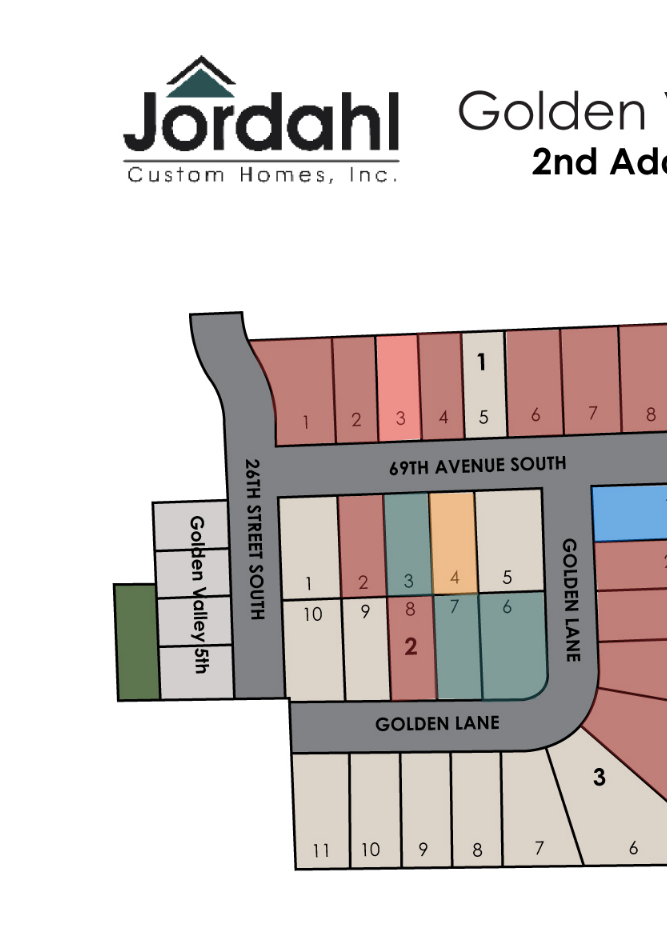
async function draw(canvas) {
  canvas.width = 667;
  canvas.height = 940;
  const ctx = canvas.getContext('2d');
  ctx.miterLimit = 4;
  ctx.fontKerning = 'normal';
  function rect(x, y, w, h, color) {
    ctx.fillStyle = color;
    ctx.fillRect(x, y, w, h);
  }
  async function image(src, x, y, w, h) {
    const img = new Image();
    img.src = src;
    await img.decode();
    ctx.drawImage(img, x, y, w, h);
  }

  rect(0, 0, 667, 940, '#fff');
  await image('assets/img1.png', 112, 55, 555, 817);
  await image('assets/img2.png', 249, 324, 418, 477);
}

draw(document.querySelector('canvas'));
